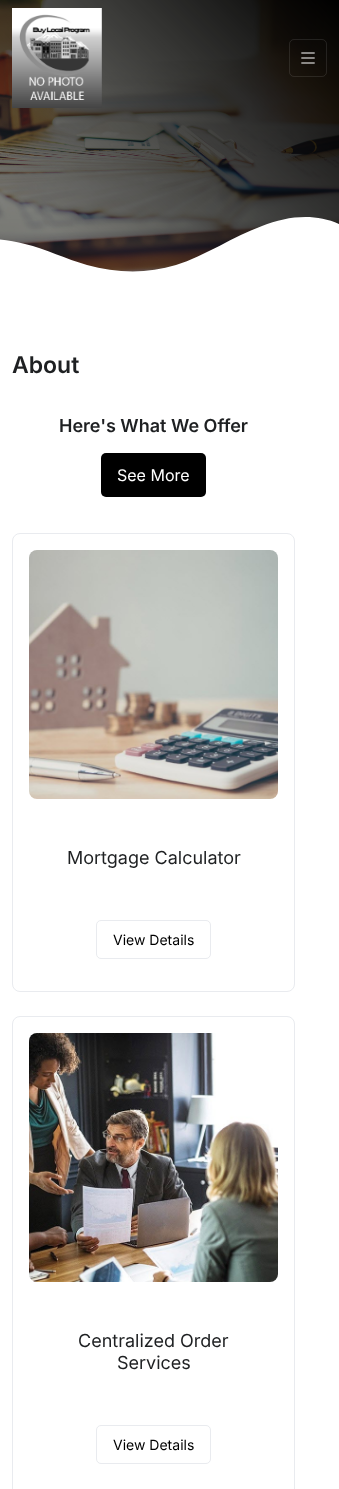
async function draw(canvas) {
  canvas.width = 339;
  canvas.height = 1489;
  const ctx = canvas.getContext('2d');
  ctx.miterLimit = 4;
  ctx.fontKerning = 'normal';
  function label(s, x, y, font, color) {
    ctx.font = font;
    ctx.fillStyle = color;
    ctx.fillText(s, x, y);
  }
  function rect(x, y, w, h, color) {
    ctx.fillStyle = color;
    ctx.fillRect(x, y, w, h);
  }
  function roundedRect(x, y, w, h, r, color) {
    ctx.fillStyle = color;
    ctx.beginPath();
    ctx.roundRect(x, y, w, h, r);
    ctx.fill();
  }
  async function image(src, x, y, w, h) {
    const img = new Image();
    img.src = src;
    await img.decode();
    ctx.drawImage(img, x, y, w, h);
  }
  let path;

  rect(0, 0, 339, 1489, '#fff');
  await image('assets/img1.png', 0, 0, 339, 272);
  path = new Path2D('M25 244C46 249 66 259 87 265C116 273 147 274 176 265C205 256 234 236 262 226C287 216 315 213 339 224V272H-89V258C-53 239-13 234 25 244Z');
  ctx.fill(path);
  await image('assets/img2.png', 12, 8, 90, 100);
  ctx.beginPath();
  ctx.roundRect(289.5, 39.5, 37, 37, 4.5);
  ctx.strokeStyle = '#ffffff1a';
  ctx.stroke();
  await image('assets/img3.png', 301, 52, 14, 12);
  label('About', 12, 373, '600 23px Inter', '#1e2022');
  label('Here\'s What We Offer', 59, 432, '600 18px Inter', '#1e2022');
  roundedRect(101, 453, 105, 44, 5, '#000');
  label('See More', 117, 481, '16px Inter', '#fff');
  ctx.beginPath();
  ctx.roundRect(12.5, 533.5, 282, 458, 7.5);
  ctx.strokeStyle = '#e9ebef';
  ctx.stroke();
  await image('assets/img4.png', 29, 550, 249, 249);
  label('Mortgage Calculator', 67, 864, '18px Inter', '#1e2022');
  ctx.beginPath();
  ctx.roundRect(96.5, 920.5, 114, 38, 4.5);
  ctx.stroke();
  label('View Details', 113, 945, '14px Inter', '#000');
  ctx.beginPath();
  ctx.roundRect(12.5, 1016.5, 282, 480, 7.5);
  ctx.stroke();
  await image('assets/img5.png', 29, 1033, 249, 249);
  label('Centralized Order', 78, 1347, '18px Inter', '#1e2022');
  label('Services', 117, 1369, '18px Inter', '#1e2022');
  ctx.beginPath();
  ctx.roundRect(96.5, 1425.5, 114, 38, 4.5);
  ctx.stroke();
  label('View Details', 113, 1450, '14px Inter', '#000');
}

draw(document.querySelector('canvas'));
